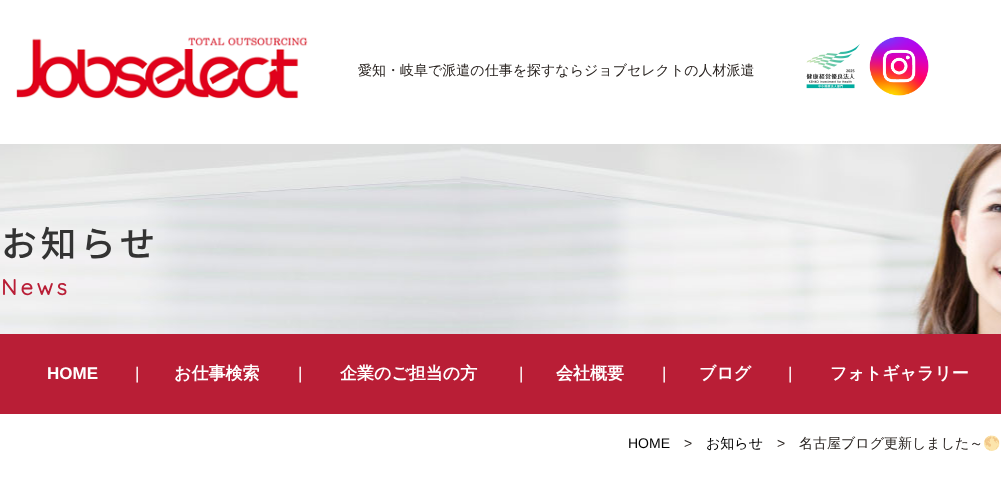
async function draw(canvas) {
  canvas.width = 1001;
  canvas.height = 488;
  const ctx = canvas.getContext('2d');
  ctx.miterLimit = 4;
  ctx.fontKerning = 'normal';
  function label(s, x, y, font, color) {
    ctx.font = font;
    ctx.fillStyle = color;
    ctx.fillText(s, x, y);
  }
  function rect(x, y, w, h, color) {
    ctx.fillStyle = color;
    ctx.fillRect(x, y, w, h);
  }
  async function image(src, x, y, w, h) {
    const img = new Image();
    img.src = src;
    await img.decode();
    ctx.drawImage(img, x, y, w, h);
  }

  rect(0, 0, 1001, 488, '#fff');
  await image('assets/img1.png', 16, 37, 292, 62);
  label('愛知・岐阜で派遣の仕事を探すならジョブセレクトの人材派遣', 358, 75, '500 14px WenQuanYi Zen Hei', '#2a2421');
  await image('assets/img2.png', 806, 44, 54, 45);
  await image('assets/img3.png', 869, 36, 60, 60);
  await image('assets/img4.png', 0, 144, 1001, 190);
  ctx.letterSpacing = '3.5px';
  label('お知らせ', 1, 257, '500 36px Noto Sans JP', '#333');
  label('News', 1, 295, 'bold 22px Quicksand', '#b91e36');
  rect(0, 334, 1001, 80, '#b91e36');
  ctx.letterSpacing = '0px';
  label('HOME', 47, 379, 'bold 17px Liberation Sans', '#fff');
  label('|', 135, 379, '17px Liberation Sans', '#fff');
  label('お仕事検索', 174, 379, 'bold 17px WenQuanYi Zen Hei', '#fff');
  label('|', 298, 379, '17px Liberation Sans', '#fff');
  label('企業のご担当の方', 340, 379, 'bold 17px WenQuanYi Zen Hei', '#fff');
  label('|', 519, 379, '17px Liberation Sans', '#fff');
  label('会社概要', 556, 379, 'bold 17px WenQuanYi Zen Hei', '#fff');
  label('|', 662, 379, '17px Liberation Sans', '#fff');
  label('ブログ', 699, 379, 'bold 17px WenQuanYi Zen Hei', '#fff');
  label('|', 788, 379, '17px Liberation Sans', '#fff');
  label('フォトギャラリー', 830, 379, 'bold 17px WenQuanYi Zen Hei', '#fff');
  label('HOME', 628, 448, '14px Liberation Sans', '#000');
  label('>', 684, 448, '14px Liberation Sans', '#2a2421');
  label('お知らせ', 706, 448, '500 14px WenQuanYi Zen Hei', '#000');
  label('>', 777, 448, '14px Liberation Sans', '#2a2421');
  label('名古屋ブログ更新しました～', 799, 448, '500 14px WenQuanYi Zen Hei', '#2a2421');
  label('🌕', 983, 448, '14px Noto Color Emoji', '#2a2421');
}

draw(document.querySelector('canvas'));
